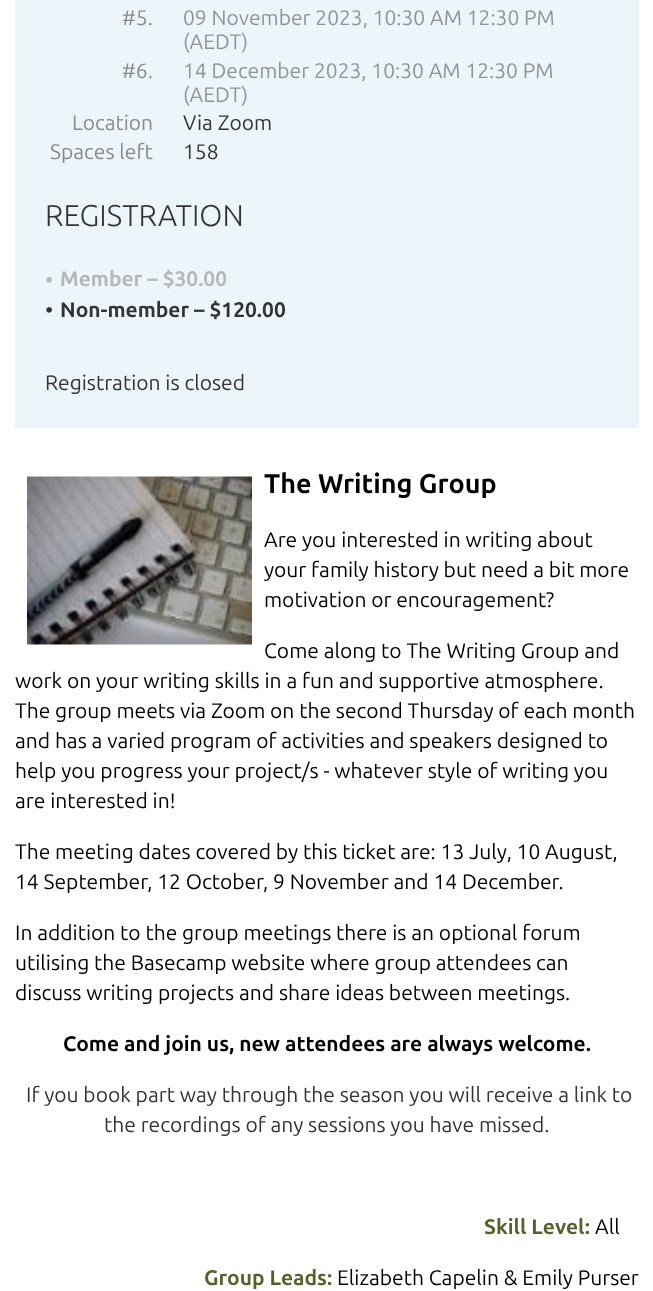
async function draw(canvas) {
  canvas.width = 653;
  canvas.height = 1291;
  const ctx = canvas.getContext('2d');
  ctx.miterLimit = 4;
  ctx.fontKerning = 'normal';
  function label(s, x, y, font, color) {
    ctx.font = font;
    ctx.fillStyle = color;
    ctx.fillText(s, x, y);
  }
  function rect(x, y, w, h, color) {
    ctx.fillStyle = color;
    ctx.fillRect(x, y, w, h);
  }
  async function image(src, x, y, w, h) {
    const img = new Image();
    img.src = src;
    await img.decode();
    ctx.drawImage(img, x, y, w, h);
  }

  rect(0, 0, 653, 1291, '#fff');
  rect(15, 0, 624, 428, '#ebf5fa');
  label('#5.', 122, 25, '21px Ubuntu', '#898989');
  label('09 November 2023, 10:30 AM 12:30 PM', 183, 25, '21px Ubuntu', '#8f9497');
  label('(AEDT)', 183, 49, '21px Ubuntu', '#8f9497');
  label('#6.', 122, 78, '21px Ubuntu', '#898989');
  label('14 December 2023, 10:30 AM 12:30 PM', 183, 78, '21px Ubuntu', '#8f9497');
  label('(AEDT)', 183, 102, '21px Ubuntu', '#8f9497');
  label('Location', 72, 130, '21px Ubuntu', '#898989');
  label('Via Zoom', 183, 130, '21px Ubuntu', '#333');
  label('Spaces left', 50, 159, '21px Ubuntu', '#898989');
  label('158', 183, 159, '21px Ubuntu', '#333');
  label('REGISTRATION', 45, 226, '300 30px Ubuntu', '#333');
  label('•', 45, 288, '23px Ubuntu', '#b7b7b7');
  label('Member – $30.00', 60, 286, 'bold 21px Ubuntu', '#b7b7b7');
  label('•', 45, 318, '23px Ubuntu', '#333');
  label('Non-member – $120.00', 60, 317, 'bold 21px Ubuntu', '#333');
  label('Registration is closed', 45, 390, '21px Ubuntu', '#333');
  await image('assets/img1.png', 27, 476, 225, 169);
  label('The Writing Group', 264, 493, 'bold 27px Ubuntu', '#000');
  label('Are you interested in writing about', 264, 547, '21px Ubuntu', '#000');
  label('your family history but need a bit more', 264, 577, '21px Ubuntu', '#000');
  label('motivation or encouragement?', 264, 607, '21px Ubuntu', '#000');
  label('Come along to The Writing Group and', 264, 658, '21px Ubuntu', '#000');
  label('work on your writing skills in a fun and supportive atmosphere.', 15, 688, '21px Ubuntu', '#000');
  label('The group meets via Zoom on the second Thursday of each month', 15, 718, '21px Ubuntu', '#000');
  label('and has a varied program of activities and speakers designed to', 15, 748, '21px Ubuntu', '#000');
  label('help you progress your project/s - whatever style of writing you', 15, 778, '21px Ubuntu', '#000');
  label('are interested in!', 15, 808, '21px Ubuntu', '#000');
  label('The meeting dates covered by this ticket are: 13 July, 10 August,', 15, 859, '21px Ubuntu', '#000');
  label('14 September, 12 October, 9 November and 14 December.', 15, 889, '21px Ubuntu', '#000');
  label('In addition to the group meetings there is an optional forum', 15, 940, '21px Ubuntu', '#000');
  label('utilising the Basecamp website where group attendees can', 15, 970, '21px Ubuntu', '#000');
  label('discuss writing projects and share ideas between meetings.', 15, 1000, '21px Ubuntu', '#000');
  label('Come and join us, new attendees are always welcome.', 63, 1051, 'bold 21px Ubuntu', '#000');
  label('If you book part way through the season you will receive a link to', 26, 1102, '21px Ubuntu', '#333');
  label('the recordings of any sessions you have missed.', 104, 1132, '21px Ubuntu', '#333');
  label('Skill Level:', 484, 1234, 'bold 21px Ubuntu', '#56622b');
  label('All', 595, 1234, '21px Ubuntu', '#000');
  label('Group Leads:', 204, 1285, 'bold 21px Ubuntu', '#56622b');
  label('Elizabeth Capelin & Emily Purser', 337, 1285, '21px Ubuntu', '#000');
}

draw(document.querySelector('canvas'));
